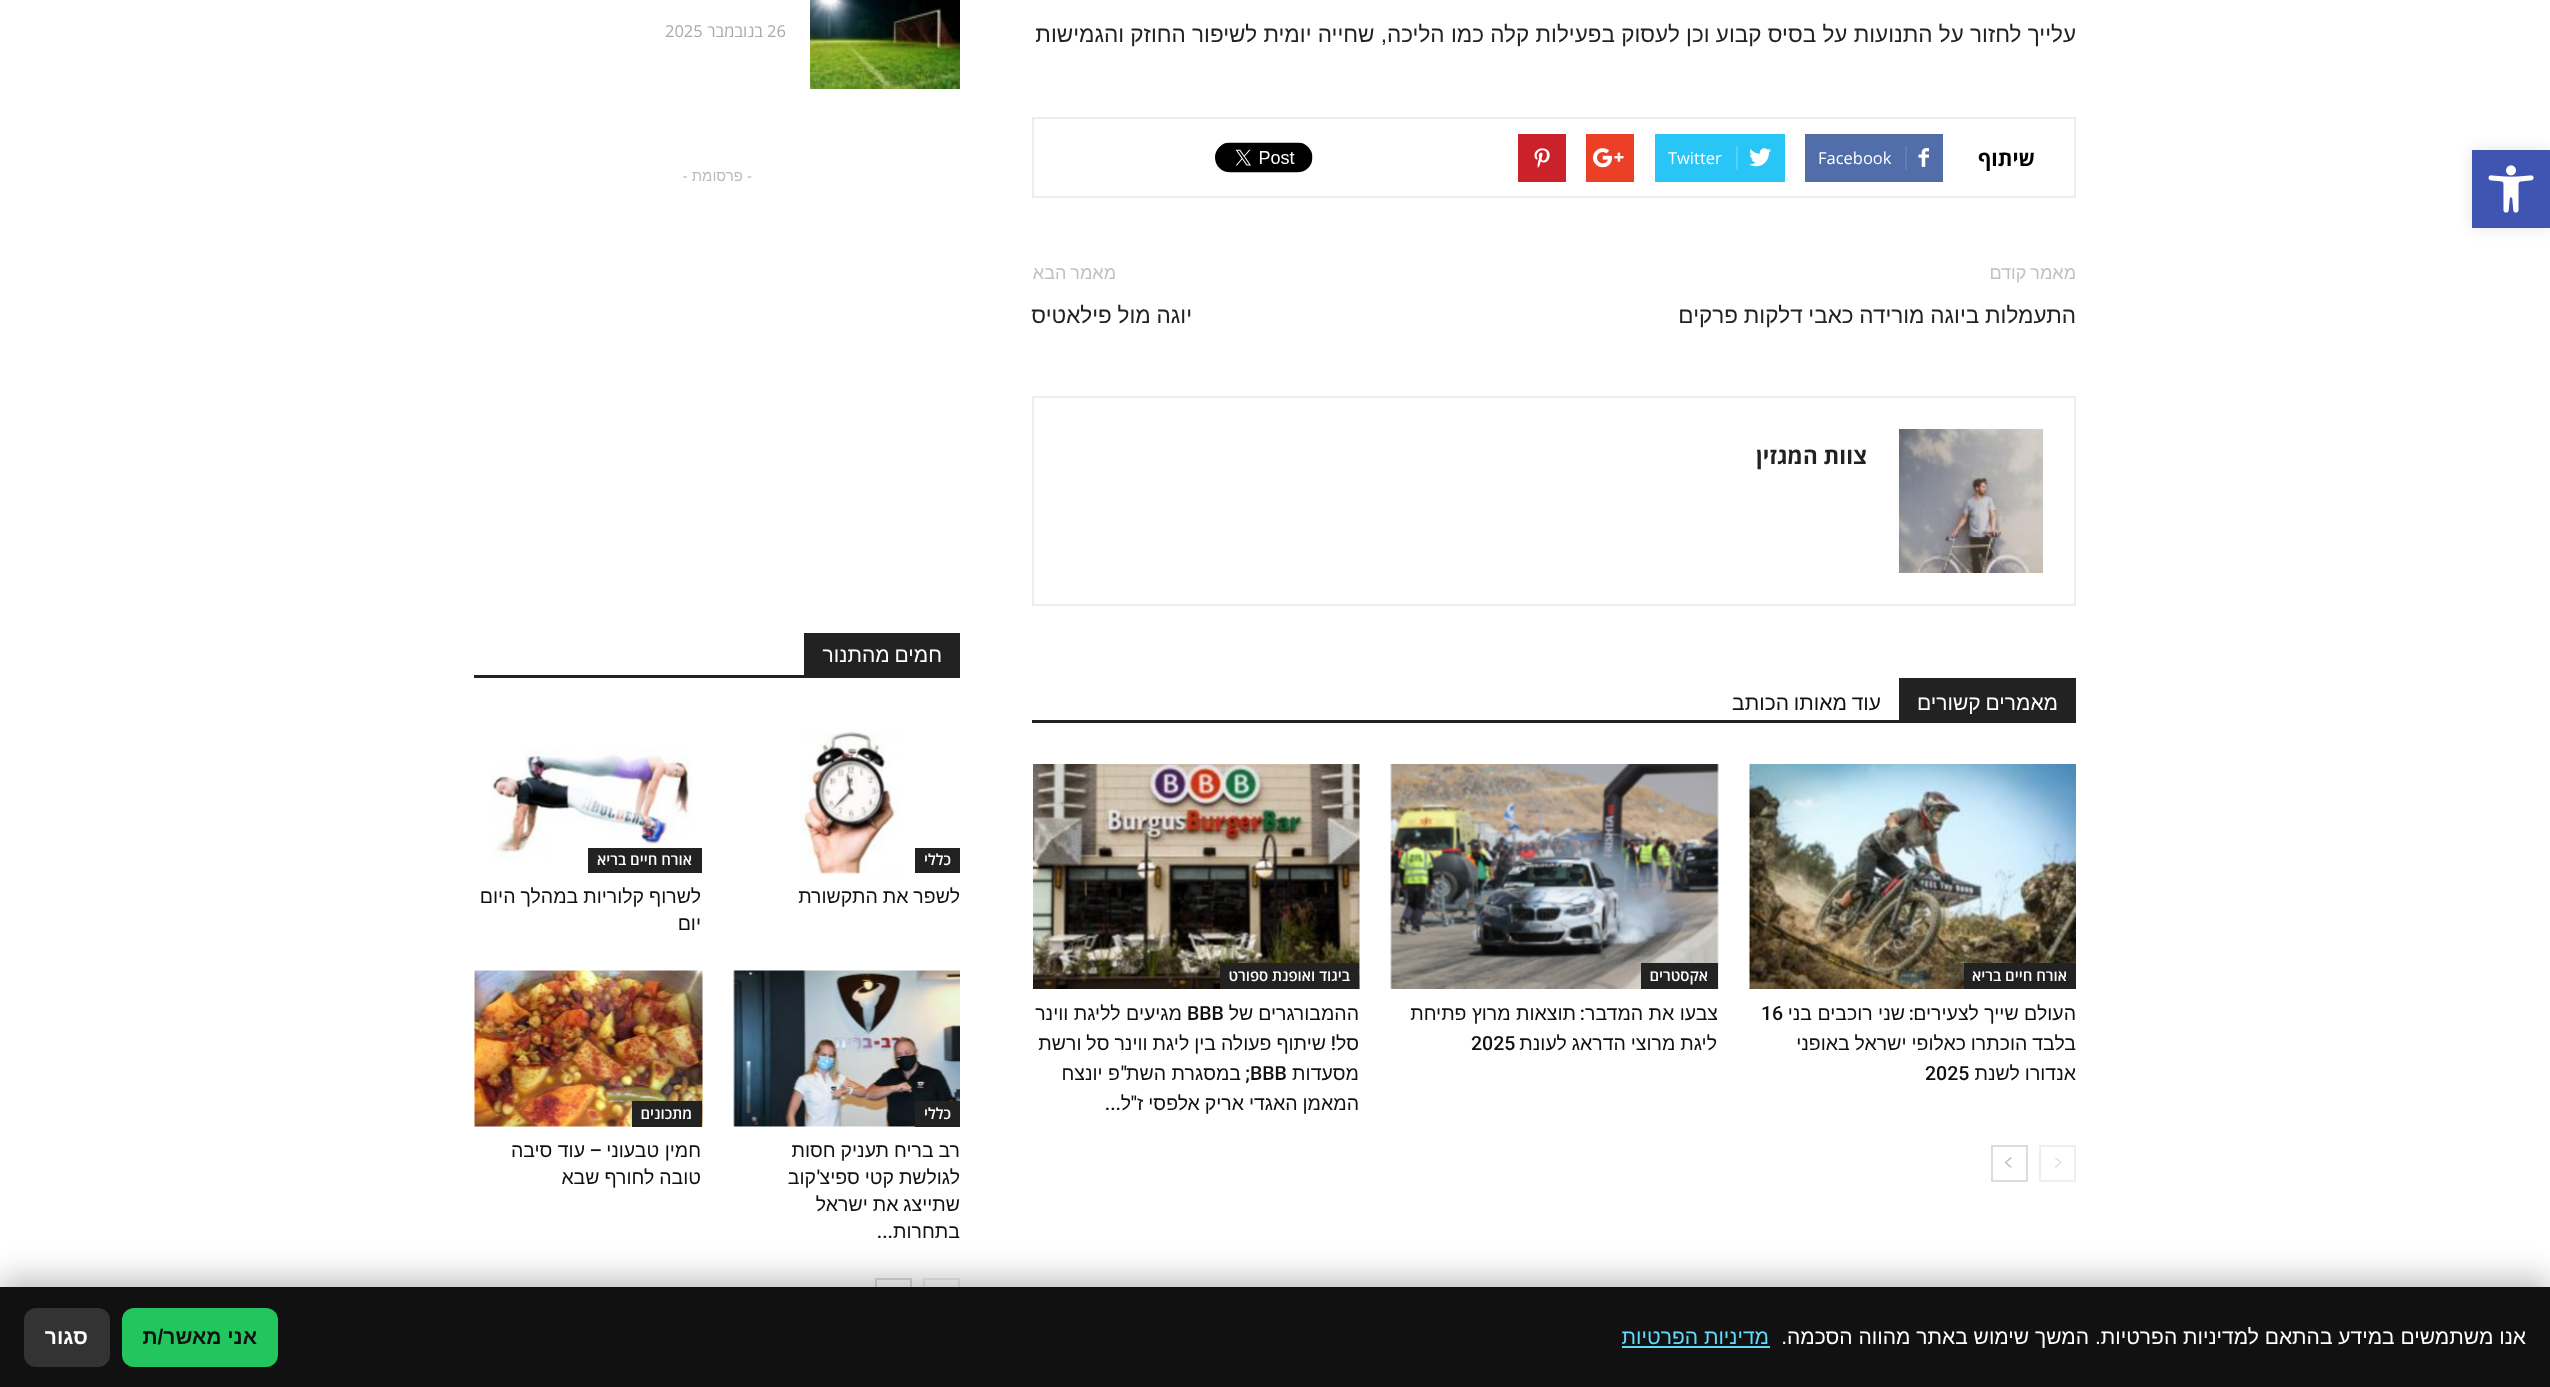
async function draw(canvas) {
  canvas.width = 2550;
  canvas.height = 1387;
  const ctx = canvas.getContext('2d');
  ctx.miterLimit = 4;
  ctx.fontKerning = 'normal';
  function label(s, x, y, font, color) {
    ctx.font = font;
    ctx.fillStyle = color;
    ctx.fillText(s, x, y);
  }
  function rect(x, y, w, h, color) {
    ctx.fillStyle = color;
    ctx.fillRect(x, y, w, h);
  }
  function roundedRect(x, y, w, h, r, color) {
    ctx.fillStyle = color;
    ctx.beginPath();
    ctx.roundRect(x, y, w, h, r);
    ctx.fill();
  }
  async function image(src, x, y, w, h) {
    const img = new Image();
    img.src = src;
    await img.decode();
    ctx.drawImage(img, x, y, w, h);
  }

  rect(0, 0, 2550, 1387, '#fff');
  ctx.fillStyle = '#0000001a';
  ctx.filter = 'blur(7.5px)';
  ctx.beginPath();
  ctx.rect(2472, 150, 78, 78);
  ctx.fill();
  ctx.filter = 'none';
  rect(2472, 150, 78, 78, '#4054b2');
  await image('assets/img1.png', 2488, 165, 46, 48);
  ctx.direction = 'rtl';
  label('עלייך לחזור על התנועות על בסיס קבוע וכן לעסוק בפעילות קלה כמו הליכה, שחייה יומית לשיפור החוזק והגמישות', 2076, 42, '22.5px Liberation Sans', '#222');
  ctx.strokeStyle = '#ededed';
  ctx.lineWidth = 2;
  ctx.strokeRect(1033, 118, 1042, 79);
  label('שיתוף', 2035, 166, 'bold 21px Open Sans', '#000');
  rect(1805, 134, 138, 48, '#516eab');
  await image('assets/img2.png', 1918, 148, 11, 19);
  rect(1905, 146, 2, 24, '#627db3');
  ctx.direction = 'ltr';
  label('Facebook', 1818, 164, '16.5px Open Sans', '#fff');
  rect(1655, 134, 130, 48, '#29c5f6');
  await image('assets/img3.png', 1749, 148, 22, 19);
  rect(1736, 146, 2, 24, '#54d1f8');
  label('Twitter', 1668, 164, '16.5px Open Sans', '#fff');
  rect(1586, 134, 48, 48, '#eb4026');
  await image('assets/img4.png', 1593, 148, 31, 20);
  rect(1518, 134, 48, 48, '#ca212a');
  await image('assets/img5.png', 1534, 148, 16, 20);
  await image('assets/img6.png', 1215, 142, 98, 31);
  ctx.wordSpacing = '-1px';
  ctx.direction = 'rtl';
  label('מאמר קודם', 2076, 279, '18px Liberation Sans', '#c1c1c1');
  ctx.wordSpacing = '-0.5px';
  label('התעמלות ביוגה מורידה כאבי דלקות פרקים', 2076, 323, '22.5px Liberation Sans', '#222');
  ctx.wordSpacing = '-1px';
  label('מאמר הבא', 1116, 279, '18px Liberation Sans', '#c1c1c1');
  ctx.wordSpacing = '-0.5px';
  label('יוגה מול פילאטיס', 1192, 323, '22.5px Liberation Sans', '#222');
  ctx.strokeRect(1033, 397, 1042, 208);
  await image('assets/img7.png', 1899, 429, 144, 144);
  ctx.wordSpacing = '0px';
  label('צוות המגזין', 1867, 464, 'bold 22.5px Open Sans', '#222');
  rect(1032, 720, 1044, 3, '#222');
  rect(1899, 678, 177, 42, '#222');
  ctx.wordSpacing = '-1px';
  label('מאמרים קשורים', 2058, 710, '21px Liberation Sans', '#fff');
  label('עוד מאותו הכותב', 1881, 710, '21px Liberation Sans', '#111');
  await image('assets/img8.png', 1749, 764, 327, 225);
  rect(1964, 963, 112, 26, '#222');
  ctx.wordSpacing = '0px';
  label('אורח חיים בריא', 2067, 981, '600 15px Open Sans', '#fff');
  label('העולם שייך לצעירים', 2076, 1020, '19.5px Liberation Sans', '#111');
  label(':', 1914, 1020, '500 19.5px Roboto', '#111');
  label('שני רוכבים בני', 1905, 1020, '19.5px Liberation Sans', '#111');
  ctx.direction = 'ltr';
  label('16', 1761, 1020, '500 19.5px Roboto', '#111');
  ctx.save();
  ctx.beginPath();
  ctx.rect(1032, 678, 1044, 576);
  ctx.clip();
  ctx.wordSpacing = '-0.5px';
  ctx.direction = 'rtl';
  label('בלבד הוכתרו כאלופי ישראל באופני', 2076, 1050, '19.5px Liberation Sans', '#111');
  ctx.restore();
  ctx.wordSpacing = '-0.5px';
  ctx.direction = 'rtl';
  label('אנדורו לשנת', 2076, 1080, '19.5px Liberation Sans', '#111');
  ctx.wordSpacing = '0px';
  ctx.direction = 'ltr';
  label('2025', 1925, 1080, '500 19.5px Roboto', '#111');
  await image('assets/img9.png', 1390, 764, 329, 225);
  rect(1641, 963, 77, 26, '#222');
  ctx.direction = 'rtl';
  label('אקסטרים', 1708, 981, '600 15px Open Sans', '#fff');
  label('צבעו את המדבר', 1718, 1020, '19.5px Liberation Sans', '#111');
  label(':', 1585, 1020, '500 19.5px Roboto', '#111');
  label('תוצאות מרוץ פתיחת', 1576, 1020, '19.5px Liberation Sans', '#111');
  ctx.wordSpacing = '-0.5px';
  label('ליגת מרוצי הדראג לעונת', 1717, 1050, '19.5px Liberation Sans', '#111');
  ctx.wordSpacing = '0px';
  ctx.direction = 'ltr';
  label('2025', 1471, 1050, '500 19.5px Roboto', '#111');
  await image('assets/img10.png', 1033, 764, 327, 225);
  rect(1220, 963, 139, 26, '#222');
  ctx.direction = 'rtl';
  label('ביגוד ואופנת ספורט', 1350, 981, '600 15px Open Sans', '#fff');
  ctx.wordSpacing = '-0.5px';
  label('ההמבורגרים של', 1359, 1020, '19.5px Liberation Sans', '#111');
  ctx.wordSpacing = '0px';
  ctx.direction = 'ltr';
  label('BBB', 1187, 1020, '500 19.5px Roboto', '#111');
  ctx.direction = 'rtl';
  label('מגיעים לליגת ווינר', 1182, 1020, '19.5px Liberation Sans', '#111');
  label('סל', 1359, 1050, '19.5px Liberation Sans', '#111');
  label('!', 1336, 1050, '500 19.5px Roboto', '#111');
  ctx.wordSpacing = '-0.5px';
  label('שיתוף פעולה בין ליגת ווינר סל ורשת', 1326, 1050, '19.5px Liberation Sans', '#111');
  ctx.wordSpacing = '0px';
  label('מסעדות', 1359, 1080, '19.5px Liberation Sans', '#111');
  ctx.direction = 'ltr';
  label('BBB', 1250, 1080, '500 19.5px Roboto', '#111');
  ctx.direction = 'rtl';
  label(';', 1250, 1080, '500 19.5px Roboto', '#111');
  label('במסגרת השת', 1241, 1080, '19.5px Liberation Sans', '#111');
  label('"', 1127, 1080, '500 19.5px Roboto', '#111');
  label('פ יונצח', 1120, 1080, '19.5px Liberation Sans', '#111');
  ctx.wordSpacing = '-0.5px';
  label('המאמן האגדי אריק אלפסי ז', 1359, 1110, '19.5px Liberation Sans', '#111');
  ctx.wordSpacing = '0px';
  label('"', 1137, 1110, '500 19.5px Roboto', '#111');
  label('ל', 1131, 1110, '19.5px Liberation Sans', '#111');
  label('...', 1121, 1110, '500 19.5px Roboto', '#111');
  ctx.strokeStyle = '#eee';
  ctx.strokeRect(2040, 1146, 35, 35);
  await image('assets/img11.png', 2055, 1157, 7, 11);
  ctx.strokeStyle = '#dcdcdc';
  ctx.strokeRect(1992, 1146, 35, 35);
  await image('assets/img12.png', 2005, 1157, 7, 11);
  await image('assets/img13.png', 810, 0, 150, 89);
  ctx.direction = 'ltr';
  label('26', 767, 37, '16.5px Open Sans', '#aaa');
  ctx.direction = 'rtl';
  label('בנובמבר', 763, 37, '16.5px Open Sans', '#aaa');
  ctx.direction = 'ltr';
  label('2025', 665, 37, '16.5px Open Sans', '#aaa');
  ctx.direction = 'rtl';
  label('- פרסומת -', 752, 181, '15px Liberation Sans', '#bbb');
  rect(474, 675, 486, 3, '#222');
  rect(804, 633, 156, 42, '#222');
  ctx.wordSpacing = '-1px';
  label('חמים מהתנור', 942, 662, '21px Liberation Sans', '#fff');
  rect(915, 848, 45, 25, '#222');
  ctx.wordSpacing = '0px';
  label('כללי', 951, 865, '600 15px Open Sans', '#fff');
  await image('assets/img14.png', 800, 732, 101, 142);
  ctx.wordSpacing = '-0.5px';
  label('לשפר את התקשורת', 960, 903, '19.5px Liberation Sans', '#111');
  await image('assets/img15.png', 491, 750, 201, 108);
  rect(588, 848, 114, 25, '#222');
  ctx.wordSpacing = '0px';
  label('אורח חיים בריא', 692, 865, '600 15px Open Sans', '#fff');
  ctx.wordSpacing = '-0.5px';
  label('לשרוף קלוריות במהלך היום', 701, 903, '19.5px Liberation Sans', '#111');
  ctx.wordSpacing = '0px';
  label('יום', 701, 930, '19.5px Liberation Sans', '#111');
  await image('assets/img16.png', 733, 970, 227, 157);
  rect(915, 1101, 45, 26, '#222');
  label('כללי', 951, 1119, '600 15px Open Sans', '#fff');
  ctx.save();
  ctx.beginPath();
  ctx.rect(474, 633, 486, 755);
  ctx.clip();
  ctx.wordSpacing = '-0.5px';
  label('רב בריח תעניק חסות', 960, 1157, '19.5px Liberation Sans', '#111');
  ctx.restore();
  ctx.wordSpacing = '-0.5px';
  label('לגולשת קטי ספיצ', 960, 1184, '19.5px Liberation Sans', '#111');
  ctx.wordSpacing = '0px';
  label('\'', 820, 1184, '500 19.5px Roboto', '#111');
  label('קוב', 816, 1184, '19.5px Liberation Sans', '#111');
  ctx.wordSpacing = '-0.5px';
  label('שתייצג את ישראל', 960, 1211, '19.5px Liberation Sans', '#111');
  ctx.wordSpacing = '0px';
  label('בתחרות', 960, 1238, '19.5px Liberation Sans', '#111');
  label('...', 893, 1238, '500 19.5px Roboto', '#111');
  await image('assets/img17.png', 474, 970, 229, 157);
  rect(632, 1101, 70, 26, '#222');
  label('מתכונים', 692, 1119, '600 15px Open Sans', '#fff');
  label('חמין טבעוני', 701, 1157, '19.5px Liberation Sans', '#111');
  label('–', 602, 1157, '500 19.5px Roboto', '#111');
  label('עוד סיבה', 585, 1157, '19.5px Liberation Sans', '#111');
  ctx.wordSpacing = '-0.5px';
  label('טובה לחורף שבא', 701, 1184, '19.5px Liberation Sans', '#111');
  ctx.strokeStyle = '#eee';
  ctx.strokeRect(924, 1279, 35, 36);
  ctx.strokeStyle = '#dcdcdc';
  ctx.strokeRect(876, 1279, 35, 36);
  ctx.fillStyle = '#00000040';
  ctx.filter = 'blur(15px)';
  ctx.beginPath();
  ctx.rect(0, 1278, 2550, 101);
  ctx.fill();
  ctx.filter = 'none';
  rect(0, 1287, 2550, 100, '#111');
  ctx.wordSpacing = '0px';
  label('אנו משתמשים במידע בהתאם למדיניות הפרטיות. המשך שימוש באתר מהווה הסכמה.', 2526, 1344, '21px Liberation Sans', '#fff');
  label('מדיניות הפרטיות', 1769, 1344, '21px Liberation Sans', '#61dafb');
  rect(1622, 1346, 148, 2, '#61dafb');
  roundedRect(122, 1308, 156, 59, 12, '#22c55e');
  label('אני מאשר/ת', 257, 1344, 'bold 21px Liberation Sans', '#111');
  roundedRect(24, 1308, 86, 59, 12, '#333');
  label('סגור', 88, 1344, 'bold 21px Liberation Sans', '#fff');
}

draw(document.querySelector('canvas'));
